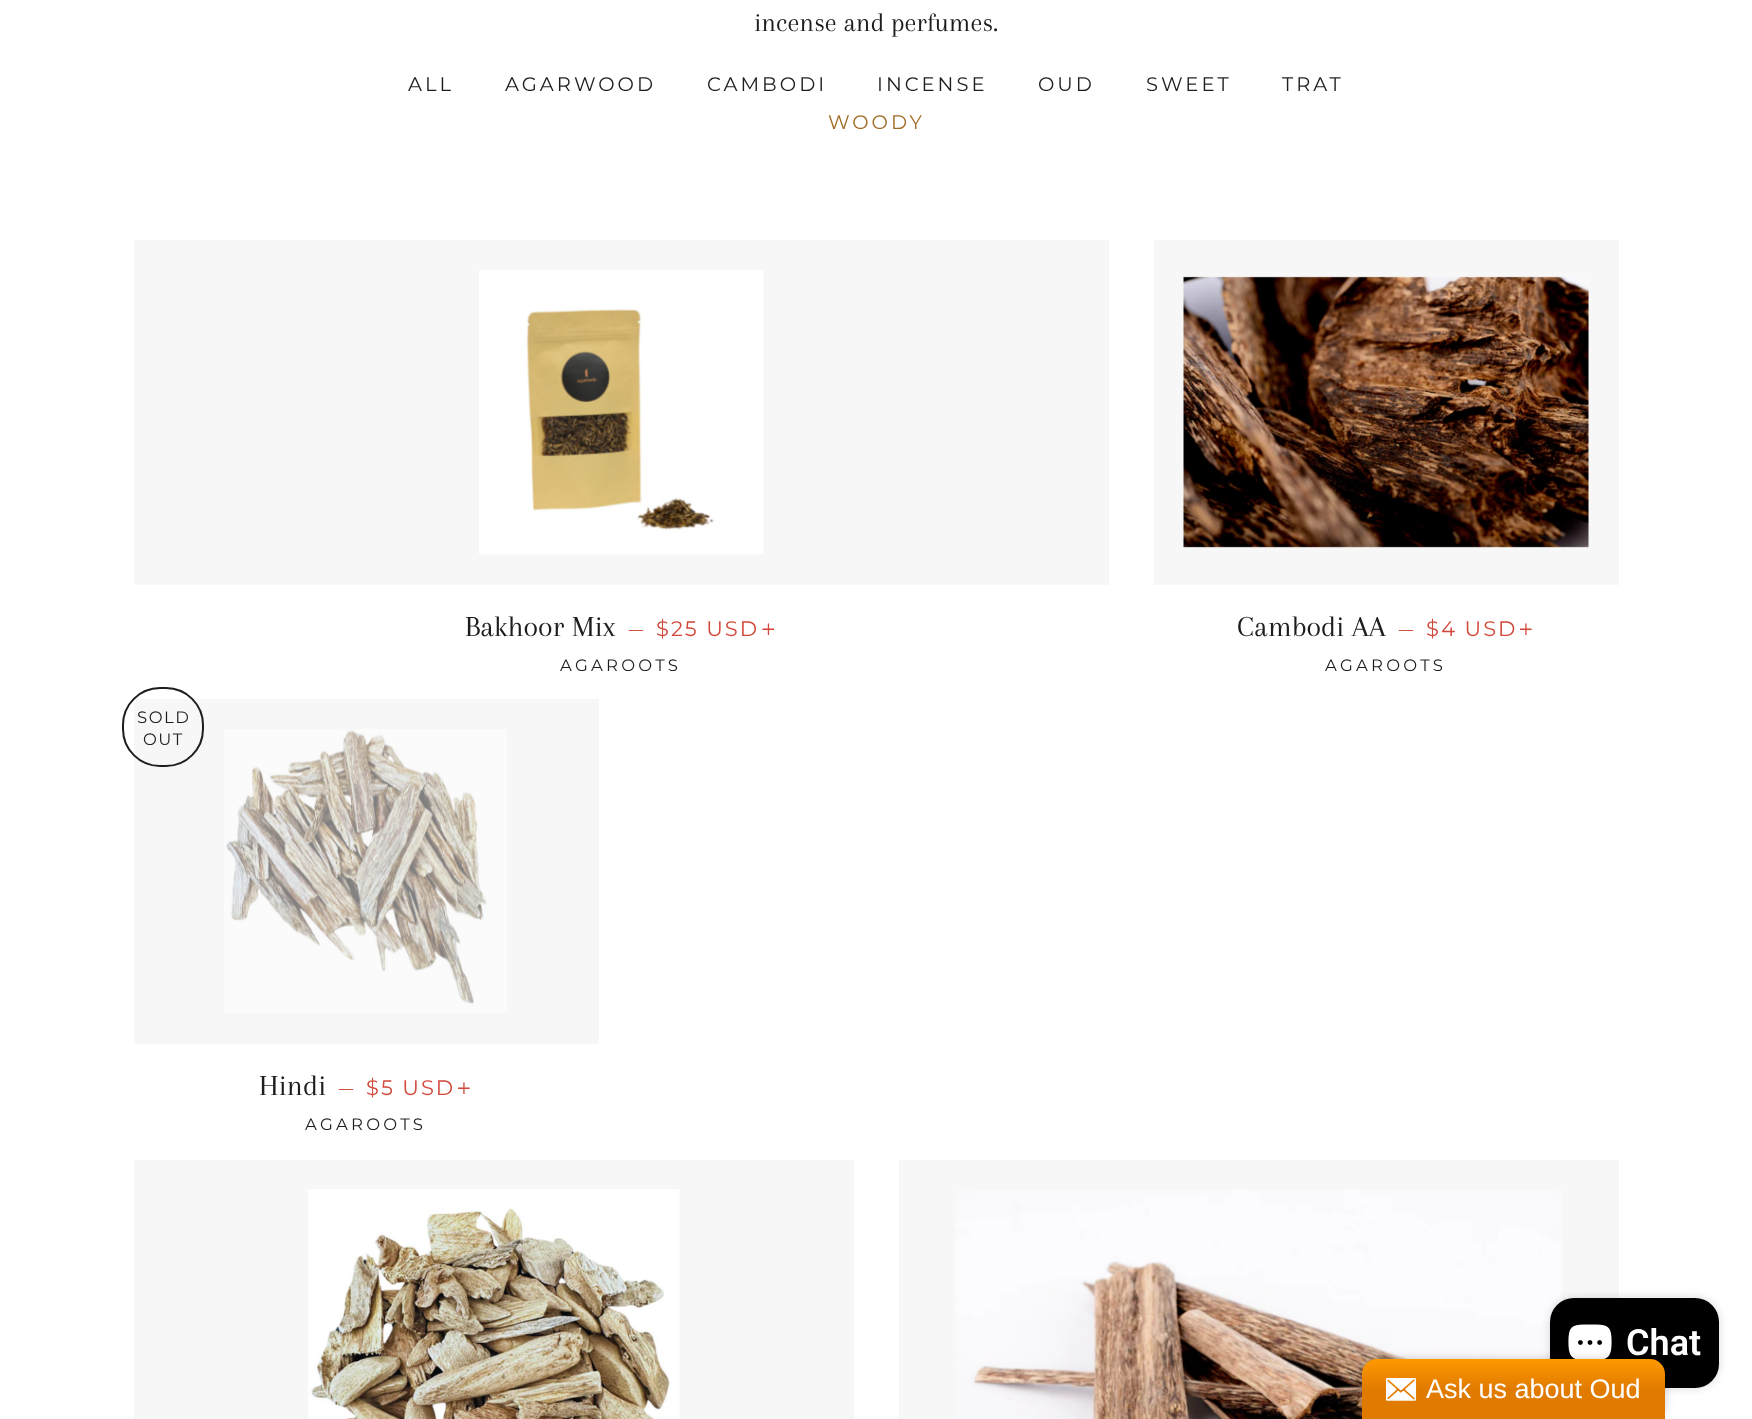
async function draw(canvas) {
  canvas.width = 1752;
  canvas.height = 1419;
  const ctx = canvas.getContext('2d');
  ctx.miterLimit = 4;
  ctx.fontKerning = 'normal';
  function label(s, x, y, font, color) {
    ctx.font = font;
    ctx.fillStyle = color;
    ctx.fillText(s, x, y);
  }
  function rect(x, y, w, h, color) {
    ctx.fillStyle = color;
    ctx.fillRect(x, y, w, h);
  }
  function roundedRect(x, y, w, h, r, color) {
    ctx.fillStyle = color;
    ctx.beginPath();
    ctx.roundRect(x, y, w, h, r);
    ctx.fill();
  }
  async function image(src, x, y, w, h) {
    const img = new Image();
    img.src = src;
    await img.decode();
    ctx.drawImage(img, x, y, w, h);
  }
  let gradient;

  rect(0, 0, 1752, 1419, '#fff');
  label('incense and perfumes.', 754, 31, '27px Arapey', '#1c1d1d');
  ctx.letterSpacing = '3px';
  label('ALL', 408, 91, '100 19.5px Montserrat', '#1c1d1d');
  label('AGARWOOD', 505, 91, '100 19.5px Montserrat', '#1c1d1d');
  label('CAMBODI', 707, 91, '100 19.5px Montserrat', '#1c1d1d');
  label('INCENSE', 877, 91, '100 19.5px Montserrat', '#1c1d1d');
  label('OUD', 1038, 91, '100 19.5px Montserrat', '#1c1d1d');
  label('SWEET', 1146, 91, '100 19.5px Montserrat', '#1c1d1d');
  label('TRAT', 1282, 91, '100 19.5px Montserrat', '#1c1d1d');
  label('WOODY', 828, 129, '100 19.5px Montserrat', '#a26b25');
  rect(134, 240, 975, 345, '#f7f7f7');
  await image('assets/img1.png', 479, 270, 285, 285);
  ctx.letterSpacing = '0px';
  label('Bakhoor Mix', 465, 636, '30px Arapey', '#1c1d1d');
  label('—', 628, 636, '24px Arapey', '#d2483a');
  ctx.letterSpacing = '2px';
  label('$25 USD', 656, 636, '100 21px Montserrat', '#d2483a');
  await image('assets/img2.png', 762, 623, 13, 13);
  ctx.letterSpacing = '3.25px';
  label('AGAROOTS', 560, 671, '100 16.5px Montserrat', '#1c1d1d');
  rect(1154, 240, 465, 345, '#f7f7f7');
  await image('assets/img3.png', 1183, 276, 406, 272);
  ctx.letterSpacing = '0px';
  label('Cambodi AA', 1237, 636, '30px Arapey', '#1c1d1d');
  label('—', 1398, 636, '24px Arapey', '#d2483a');
  ctx.letterSpacing = '2px';
  label('$4 USD', 1426, 636, '100 21px Montserrat', '#d2483a');
  await image('assets/img4.png', 1520, 623, 12, 12);
  ctx.letterSpacing = '3.25px';
  label('AGAROOTS', 1325, 671, '100 16.5px Montserrat', '#1c1d1d');
  rect(134, 699, 465, 345, '#f7f7f7');
  await image('assets/img5.png', 224, 729, 283, 284);
  ctx.beginPath();
  ctx.roundRect(123, 688, 80, 78, 37);
  ctx.strokeStyle = '#1c1d1d';
  ctx.lineWidth = 2;
  ctx.stroke();
  ctx.letterSpacing = '1.5px';
  label('SOLD', 137, 723, '100 16.5px Montserrat', '#1c1d1d');
  label('OUT', 143, 745, '100 16.5px Montserrat', '#1c1d1d');
  ctx.letterSpacing = '0px';
  label('Hindi', 259, 1095, '30px Arapey', '#1c1d1d');
  label('—', 338, 1095, '24px Arapey', '#d2483a');
  ctx.letterSpacing = '2px';
  label('$5 USD', 366, 1095, '100 21px Montserrat', '#d2483a');
  await image('assets/img4.png', 458, 1082, 12, 12);
  ctx.letterSpacing = '3.25px';
  label('AGAROOTS', 305, 1130, '100 16.5px Montserrat', '#1c1d1d');
  rect(134, 1160, 720, 259, '#f7f7f7');
  await image('assets/img6.png', 308, 1189, 372, 230);
  rect(899, 1160, 720, 259, '#f7f7f7');
  await image('assets/img7.png', 955, 1189, 607, 230);
  ctx.fillStyle = '#00000026';
  ctx.filter = 'blur(4px)';
  ctx.beginPath();
  ctx.roundRect(1550, 1298, 169, 90, 24);
  ctx.fill();
  ctx.filter = 'none';
  roundedRect(1550, 1298, 169, 90, 24, '#000');
  await image('assets/img8.png', 1568, 1324, 44, 35);
  ctx.letterSpacing = '0px';
  label('Chat', 1626, 1355, '600 36px Roboto', '#fff');
  ctx.fillStyle = '#00000033';
  ctx.filter = 'blur(4px)';
  ctx.beginPath();
  ctx.roundRect(1362, 1359, 303, 60, 15);
  ctx.fill();
  ctx.filter = 'none';
  gradient = ctx.createLinearGradient(1514, 1359, 1514, 1419);
  gradient.addColorStop(0, '#f90');
  gradient.addColorStop(0.5, '#e17b00');
  ctx.fillStyle = gradient;
  ctx.beginPath();
  ctx.roundRect(1362, 1359, 303, 60, [15, 15, 0, 0]);
  ctx.fill();
  await image('assets/img9.png', 1386, 1378, 31, 23);
  label('Ask us about Oud', 1426, 1398, '27px Liberation Sans', '#fff');
}

draw(document.querySelector('canvas'));
